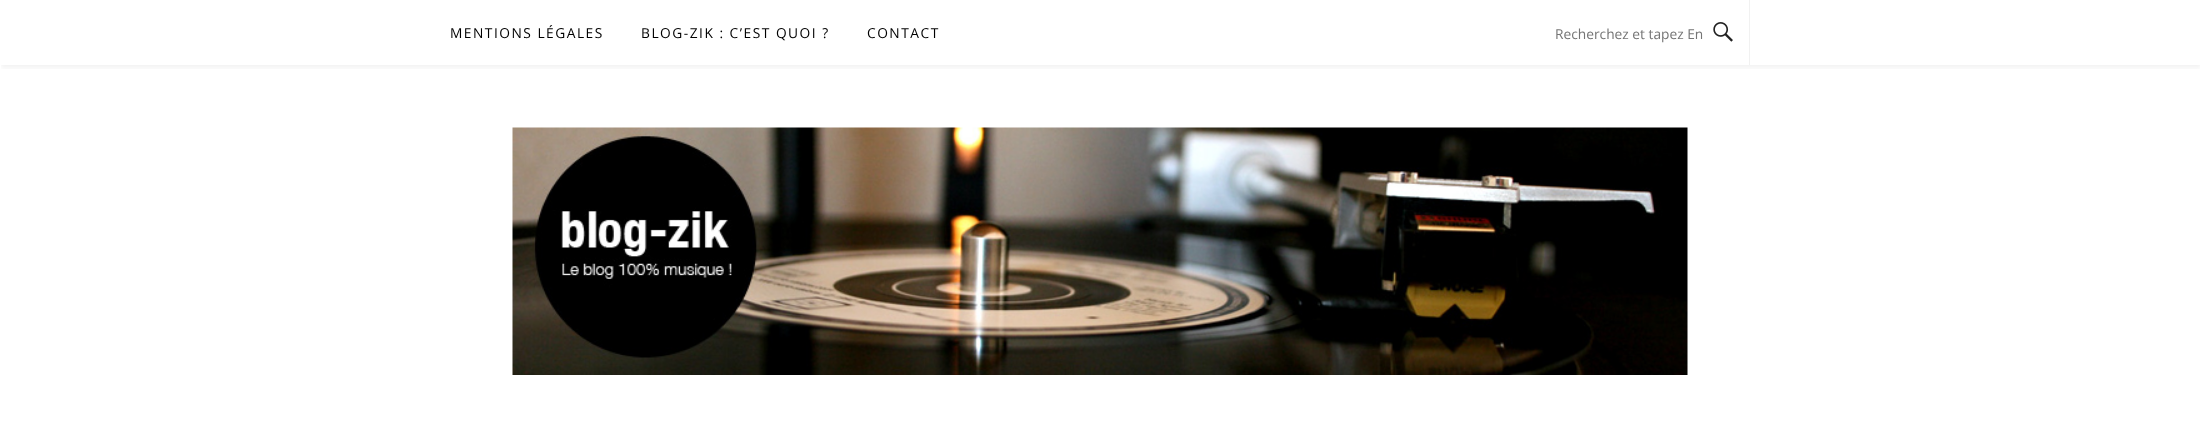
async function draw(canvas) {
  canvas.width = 2200;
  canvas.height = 431;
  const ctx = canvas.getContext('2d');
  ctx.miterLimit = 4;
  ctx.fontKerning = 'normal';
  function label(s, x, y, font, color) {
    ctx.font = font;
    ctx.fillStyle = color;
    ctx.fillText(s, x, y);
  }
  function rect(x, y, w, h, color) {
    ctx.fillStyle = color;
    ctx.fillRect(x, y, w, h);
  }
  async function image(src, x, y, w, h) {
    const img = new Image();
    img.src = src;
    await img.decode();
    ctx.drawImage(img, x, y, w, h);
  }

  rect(0, 0, 2200, 431, '#fff');
  ctx.save();
  ctx.beginPath();
  ctx.rect(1, 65, 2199, 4);
  ctx.clip();
  ctx.fillStyle = '#0000000d';
  ctx.filter = 'blur(2.5px)';
  ctx.beginPath();
  ctx.rect(1, 3, 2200, 65);
  ctx.fill();
  ctx.filter = 'none';
  ctx.restore();
  ctx.letterSpacing = '1.5px';
  label('MENTIONS LÉGALES', 450, 38, '13.75px Open Sans', '#000');
  label('BLOG-ZIK : C’EST QUOI ?', 641, 38, '13.75px Open Sans', '#000');
  label('CONTACT', 867, 38, '13.75px Open Sans', '#000');
  rect(1749, 0, 1, 65, '#f1f1f1');
  ctx.letterSpacing = '0px';
  label('Recherchez et tapez En', 1555, 39, '13.75px Open Sans', '#757575');
  await image('assets/img1.png', 1713, 22, 20, 20);
  await image('assets/img2.png', 512, 127, 1176, 248);
}

draw(document.querySelector('canvas'));
